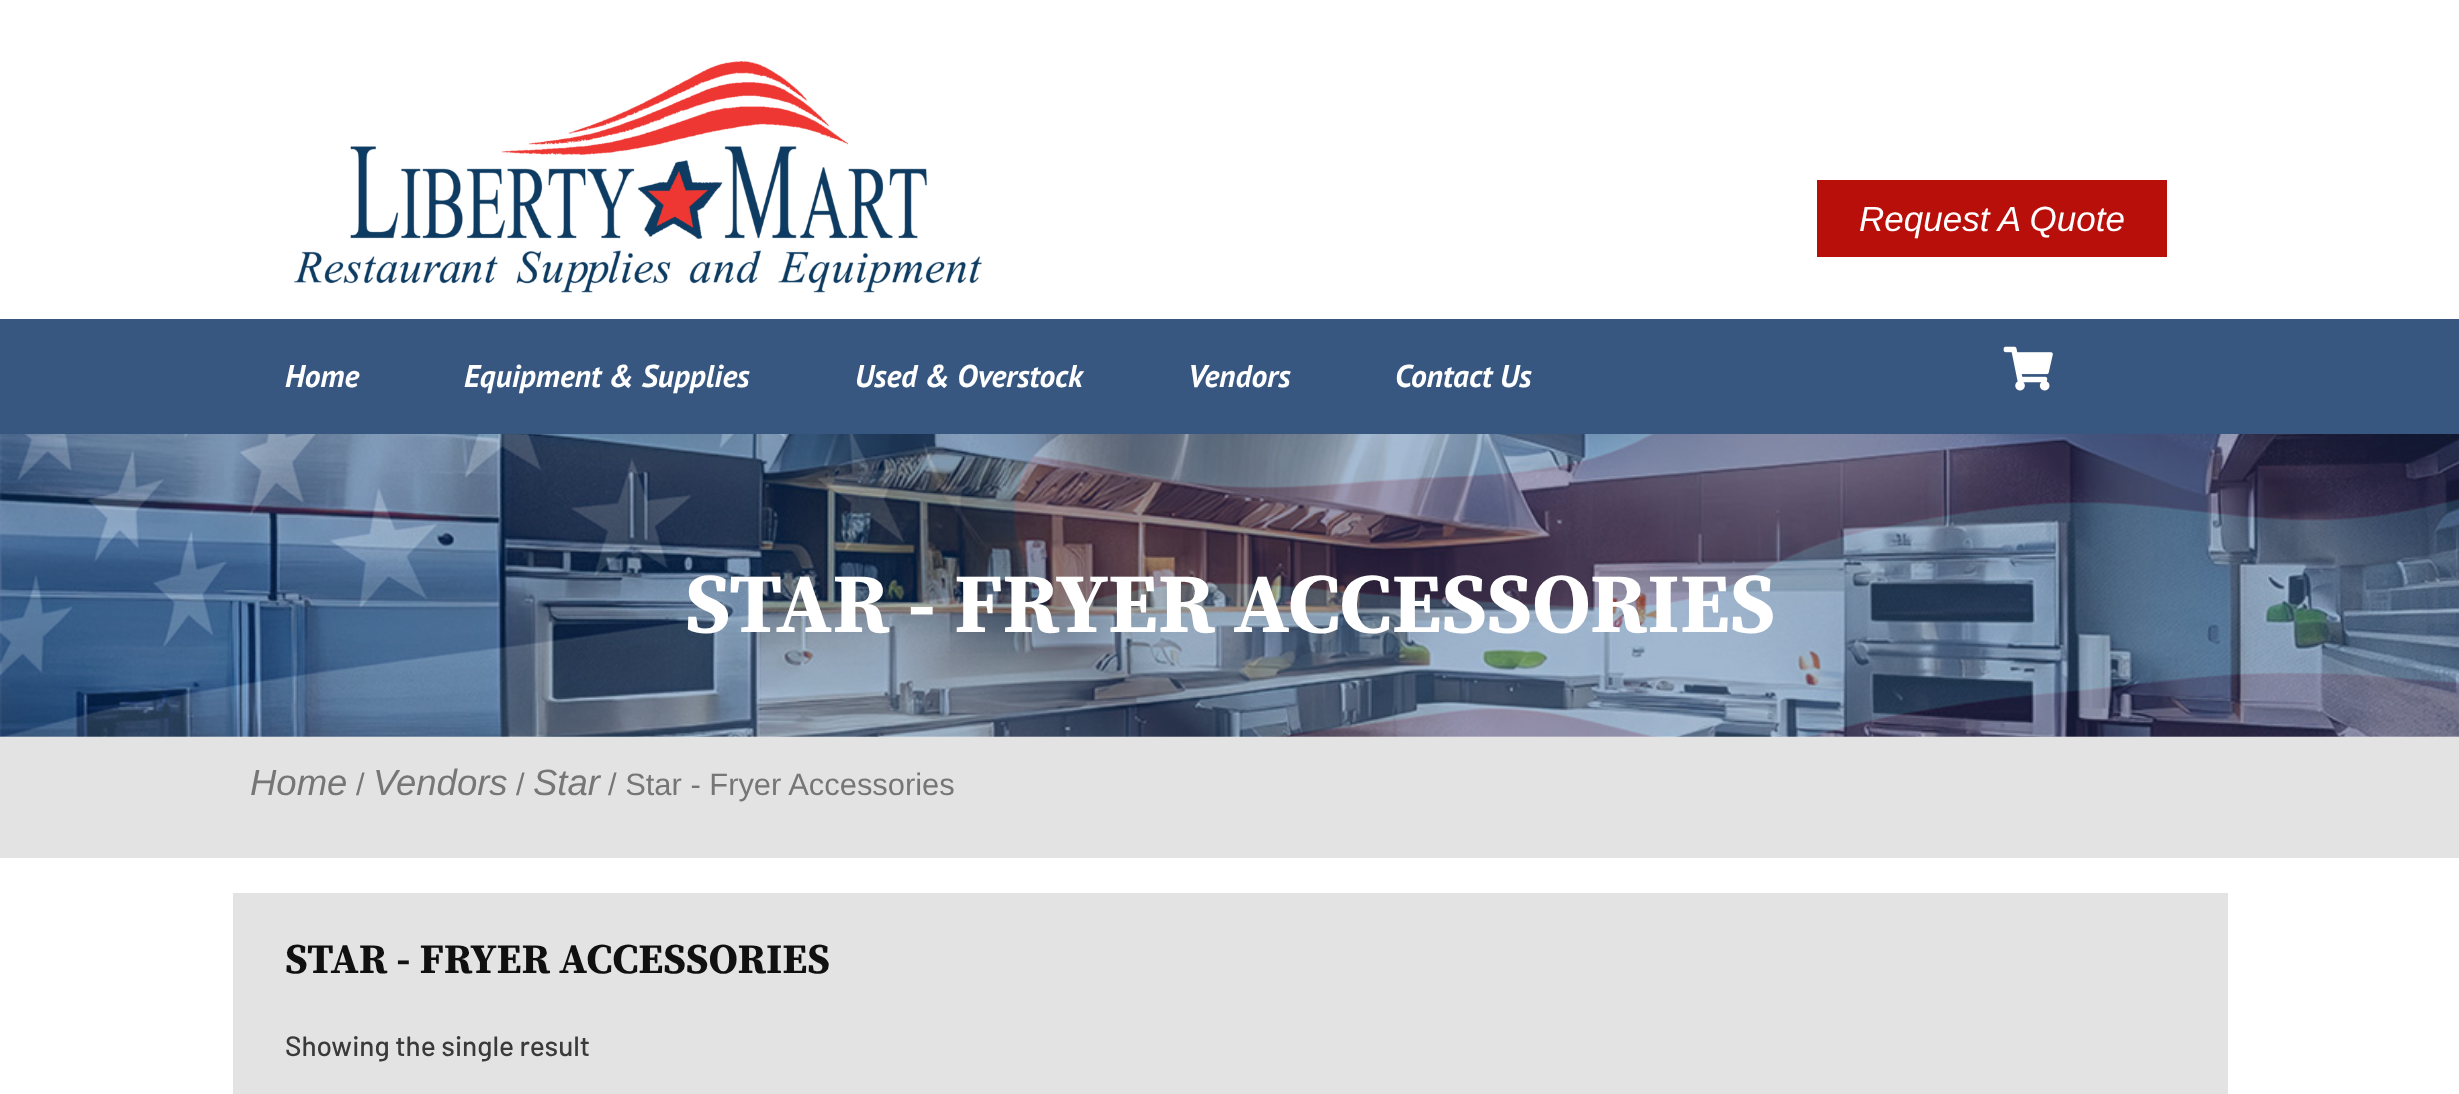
async function draw(canvas) {
  canvas.width = 2459;
  canvas.height = 1094;
  const ctx = canvas.getContext('2d');
  ctx.miterLimit = 4;
  ctx.fontKerning = 'normal';
  function label(s, x, y, font, color) {
    ctx.font = font;
    ctx.fillStyle = color;
    ctx.fillText(s, x, y);
  }
  function rect(x, y, w, h, color) {
    ctx.fillStyle = color;
    ctx.fillRect(x, y, w, h);
  }
  async function image(src, x, y, w, h) {
    const img = new Image();
    img.src = src;
    await img.decode();
    ctx.drawImage(img, x, y, w, h);
  }

  rect(0, 0, 2459, 1094, '#fff');
  await image('assets/img1.png', 294, 61, 688, 232);
  rect(1817, 180, 350, 77, '#b90f0b');
  label('Request A Quote', 1859, 231, 'italic 35px Liberation Sans', '#fff');
  rect(0, 319, 2459, 115, '#375780');
  label('Home', 285, 387, 'italic bold 31.5px PT Sans', '#fff');
  label('Equipment & Supplies', 464, 387, 'italic bold 31.5px PT Sans', '#fff');
  label('Used & Overstock', 855, 387, 'italic bold 31.5px PT Sans', '#fff');
  label('Vendors', 1188, 387, 'italic bold 31.5px PT Sans', '#fff');
  label('Contact Us', 1395, 387, 'italic bold 31.5px PT Sans', '#fff');
  await image('assets/img2.png', 2003, 346, 50, 45);
  await image('assets/img3.png', 0, 434, 2459, 303);
  label('STAR - FRYER ACCESSORIES', 685, 632, 'bold 84px Source Serif Pro', '#fff');
  rect(0, 737, 2459, 121, '#e3e3e3');
  label('Home', 250, 795, 'italic 36.5px Liberation Sans', '#767676');
  label('/', 356, 795, '30.9px Liberation Sans', '#767676');
  label('Vendors', 373, 795, 'italic 36.5px Liberation Sans', '#767676');
  label('/', 516, 795, '30.9px Liberation Sans', '#767676');
  label('Star', 533, 795, 'italic 36.5px Liberation Sans', '#767676');
  label('/ Star - Fryer Accessories', 608, 795, '30.9px Liberation Sans', '#767676');
  rect(233, 893, 1995, 201, '#e3e3e3');
  label('STAR - FRYER ACCESSORIES', 285, 973, 'bold 42px Source Serif Pro', '#101010');
  label('Showing the single result', 285, 1056, '500 28px Barlow', '#3a3a3a');
}

draw(document.querySelector('canvas'));
